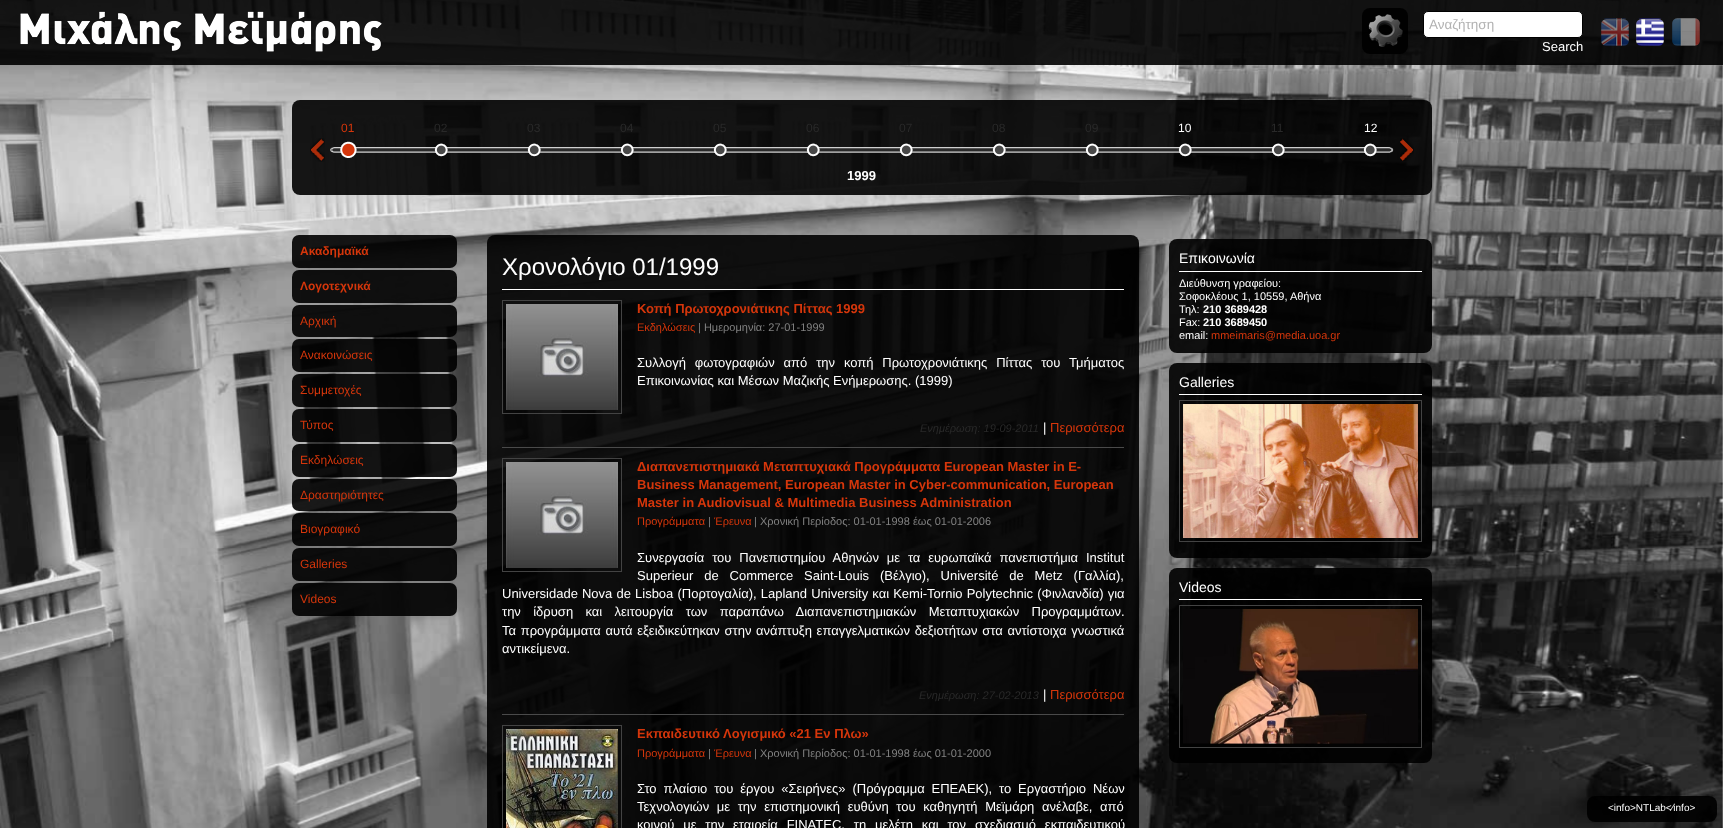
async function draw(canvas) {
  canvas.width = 1723;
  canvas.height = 828;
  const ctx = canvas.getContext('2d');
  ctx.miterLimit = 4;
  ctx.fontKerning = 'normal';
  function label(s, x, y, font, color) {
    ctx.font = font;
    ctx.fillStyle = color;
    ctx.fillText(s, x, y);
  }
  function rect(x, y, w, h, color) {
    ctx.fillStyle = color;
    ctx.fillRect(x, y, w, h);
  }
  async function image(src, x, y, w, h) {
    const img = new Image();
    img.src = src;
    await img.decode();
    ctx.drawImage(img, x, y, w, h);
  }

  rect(0, 0, 1723, 828, '#fff');
  await image('assets/img1.png', 0, 0, 1723, 828);
  rect(0, 0, 1723, 65, '#000000e6');
  await image('assets/img2.png', 20, 11, 362, 41);
  await image('assets/img3.png', 1362, 8, 46, 46);
  await image('assets/img4.png', 1368, 14, 35, 33);
  ctx.fillStyle = '#fff';
  ctx.beginPath();
  ctx.roundRect(1423.5, 11.5, 159, 26, 4.5);
  ctx.fill();
  ctx.strokeStyle = '#000';
  ctx.stroke();
  label('Αναζήτηση', 1429, 29, '13.5px Liberation Sans', '#b2b2b2');
  label('Search', 1542, 51, '13px Liberation Sans', '#fff');
  await image('assets/img5.png', 1601, 18, 28, 28);
  await image('assets/img6.png', 1636, 18, 28, 28);
  await image('assets/img7.png', 1672, 18, 28, 28);
  await image('assets/img8.png', 292, 100, 1140, 95);
  await image('assets/img9.png', 330, 147, 1064, 6);
  await image('assets/img10.png', 340, 141, 17, 17);
  label('01', 341, 132, '12px Liberation Sans', '#d5360b');
  await image('assets/img11.png', 434, 143, 14, 14);
  label('02', 434, 132, '12px Liberation Sans', '#292929');
  await image('assets/img12.png', 527, 143, 14, 14);
  label('03', 527, 132, '12px Liberation Sans', '#292929');
  await image('assets/img13.png', 620, 143, 14, 14);
  label('04', 620, 132, '12px Liberation Sans', '#292929');
  await image('assets/img14.png', 713, 143, 14, 14);
  label('05', 713, 132, '12px Liberation Sans', '#292929');
  await image('assets/img15.png', 806, 143, 14, 14);
  label('06', 806, 132, '12px Liberation Sans', '#292929');
  await image('assets/img16.png', 899, 143, 14, 14);
  label('07', 899, 132, '12px Liberation Sans', '#292929');
  await image('assets/img17.png', 992, 143, 14, 14);
  label('08', 992, 132, '12px Liberation Sans', '#292929');
  await image('assets/img18.png', 1085, 143, 14, 14);
  label('09', 1085, 132, '12px Liberation Sans', '#292929');
  await image('assets/img19.png', 1178, 143, 14, 14);
  label('10', 1178, 132, '12px Liberation Sans', '#fff');
  await image('assets/img20.png', 1271, 143, 14, 14);
  label('11', 1271, 132, '12px Liberation Sans', '#292929');
  await image('assets/img21.png', 1363, 143, 14, 14);
  label('12', 1364, 132, '12px Liberation Sans', '#fff');
  label('1999', 847, 180, 'bold 13px Liberation Sans', '#fff');
  await image('assets/img22.png', 310, 138, 15, 24);
  await image('assets/img23.png', 1400, 138, 14, 23);
  await image('assets/img24.png', 292, 235, 165, 33);
  label('Ακαδημαϊκά', 300, 255, 'bold 12px Liberation Sans', '#d5360b');
  await image('assets/img25.png', 292, 270, 165, 33);
  label('Λογοτεχνικά', 300, 290, 'bold 12px Liberation Sans', '#d5360b');
  await image('assets/img26.png', 292, 305, 165, 32);
  label('Αρχική', 300, 325, '12px Liberation Sans', '#d5360b');
  await image('assets/img27.png', 292, 339, 165, 33);
  label('Ανακοινώσεις', 300, 359, '12px Liberation Sans', '#d5360b');
  await image('assets/img28.png', 292, 374, 165, 33);
  label('Συμμετοχές', 300, 394, '12px Liberation Sans', '#d5360b');
  await image('assets/img29.png', 292, 409, 165, 33);
  label('Τύπος', 300, 429, '12px Liberation Sans', '#d5360b');
  await image('assets/img30.png', 292, 444, 165, 33);
  label('Εκδηλώσεις', 300, 464, '12px Liberation Sans', '#d5360b');
  await image('assets/img31.png', 292, 479, 165, 32);
  label('Δραστηριότητες', 300, 499, '12px Liberation Sans', '#d5360b');
  await image('assets/img32.png', 292, 513, 165, 33);
  label('Βιογραφικό', 300, 533, '12px Liberation Sans', '#d5360b');
  await image('assets/img33.png', 292, 548, 165, 33);
  label('Galleries', 300, 568, '12px Liberation Sans', '#d5360b');
  await image('assets/img34.png', 292, 583, 165, 33);
  label('Videos', 300, 603, '12px Liberation Sans', '#d5360b');
  await image('assets/img35.png', 487, 235, 652, 593);
  rect(502, 289, 622, 1, '#fff');
  label('Χρονολόγιο 01/1999', 502, 275, '24px Liberation Sans', '#fff');
  ctx.strokeStyle = '#434343';
  ctx.strokeRect(502.5, 300.5, 119, 113);
  await image('assets/img36.png', 506, 304, 112, 106);
  label('Κοπή Πρωτοχρονιάτικης Πίττας 1999', 637, 313, 'bold 13px Liberation Sans', '#d5360b');
  label('Εκδηλώσεις', 637, 331, '11px Liberation Sans', '#d5360b');
  label('| Ημερομηνία: 27-01-1999', 698, 331, '11px Liberation Sans', '#818181');
  ctx.wordSpacing = '5.25px';
  label('Συλλογή φωτογραφιών από την κοπή Πρωτοχρονιάτικης Πίττας του Τμήματος', 637, 367, '13px Liberation Sans', '#fff');
  ctx.wordSpacing = '0px';
  label('Επικοινωνίας και Μέσων Μαζικής Ενήμερωσης. (1999)', 637, 385, '13px Liberation Sans', '#fff');
  label('Ενημέρωση: 19-09-2011', 920, 432, 'italic 11px Liberation Sans', '#292929');
  label('|', 1043, 432, '13px Liberation Sans', '#fff');
  label('Περισσότερα', 1050, 432, '13px Liberation Sans', '#d5360b');
  rect(502, 447, 622, 1, '#4a4a4a');
  ctx.strokeRect(502.5, 458.5, 119, 113);
  await image('assets/img36.png', 506, 462, 112, 106);
  label('Διαπανεπιστημιακά Μεταπτυχιακά Προγράμματα European Master in Ε-', 637, 471, 'bold 13px Liberation Sans', '#d5360b');
  label('Business Management, European Master in Cyber-communication, European', 637, 489, 'bold 13px Liberation Sans', '#d5360b');
  label('Master in Audiovisual & Multimedia Business Administration', 637, 507, 'bold 13px Liberation Sans', '#d5360b');
  label('Προγράμματα', 637, 525, '11px Liberation Sans', '#d5360b');
  label('|', 708, 525, '11px Liberation Sans', '#818181');
  label('Έρευνα', 714, 525, '11px Liberation Sans', '#d5360b');
  label('| Χρονική Περίοδος: 01-01-1998 έως 01-01-2006', 754, 525, '11px Liberation Sans', '#818181');
  ctx.wordSpacing = '4.25px';
  label('Συνεργασία του Πανεπιστημίου Αθηνών με τα ευρωπαϊκά πανεπιστήμια Institut', 637, 562, '13px Liberation Sans', '#fff');
  ctx.wordSpacing = '7.25px';
  label('Superieur de Commerce Saint-Louis (Βέλγιο), Université de Metz (Γαλλία),', 637, 580, '13px Liberation Sans', '#fff');
  ctx.wordSpacing = '0.5px';
  label('Universidade Nova de Lisboa (Πορτογαλία), Lapland University και Kemi-Tornio Polytechnic (Φινλανδία) για', 502, 598, '13px Liberation Sans', '#fff');
  ctx.wordSpacing = '8.75px';
  label('την ίδρυση και λειτουργία των παραπάνω Διαπανεπιστημιακών Μεταπτυχιακών Προγραμμάτων.', 502, 616, '13px Liberation Sans', '#fff');
  ctx.wordSpacing = '1.1px';
  label('Τα προγράμματα αυτά εξειδικεύτηκαν στην ανάπτυξη επαγγελματικών δεξιοτήτων στα αντίστοιχα γνωστικά', 502, 635, '13px Liberation Sans', '#fff');
  ctx.wordSpacing = '0px';
  label('αντικείμενα.', 502, 653, '13px Liberation Sans', '#fff');
  label('Ενημέρωση: 27-02-2013', 919, 699, 'italic 11px Liberation Sans', '#292929');
  label('|', 1043, 699, '13px Liberation Sans', '#fff');
  label('Περισσότερα', 1050, 699, '13px Liberation Sans', '#d5360b');
  rect(502, 714, 622, 1, '#4a4a4a');
  ctx.strokeRect(502.5, 725.5, 119, 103);
  await image('assets/img37.png', 506, 729, 112, 99);
  label('Εκπαιδευτικό Λογισμικό «21 Εν Πλω»', 637, 738, 'bold 13px Liberation Sans', '#d5360b');
  label('Προγράμματα', 637, 757, '11px Liberation Sans', '#d5360b');
  label('|', 708, 757, '11px Liberation Sans', '#818181');
  label('Έρευνα', 714, 757, '11px Liberation Sans', '#d5360b');
  label('| Χρονική Περίοδος: 01-01-1998 έως 01-01-2000', 754, 757, '11px Liberation Sans', '#818181');
  ctx.wordSpacing = '3.25px';
  label('Στο πλαίσιο του έργου «Σειρήνες» (Πρόγραμμα ΕΠΕΑΕΚ), το Εργαστήριο Νέων', 637, 793, '13px Liberation Sans', '#fff');
  ctx.wordSpacing = '4px';
  label('Τεχνολογιών με την επιστημονική ευθύνη του καθηγητή Μεϊμάρη ανέλαβε, από', 637, 811, '13px Liberation Sans', '#fff');
  ctx.wordSpacing = '5.25px';
  label('κοινού με την εταιρεία FINATEC, τη μελέτη και τον σχεδιασμό εκπαιδευτικού', 637, 829, '13px Liberation Sans', '#fff');
  await image('assets/img38.png', 1169, 239, 263, 114);
  rect(1179, 271, 243, 1, '#fff');
  ctx.wordSpacing = '0px';
  label('Επικοινωνία', 1179, 263, '14px Liberation Sans', '#fff');
  label('Διεύθυνση γραφείου:', 1179, 287, '11px Liberation Sans', '#fff');
  label('Σοφοκλέους 1, 10559, Αθήνα', 1179, 300, '11px Liberation Sans', '#fff');
  label('Τηλ:', 1179, 313, '11px Liberation Sans', '#fff');
  label('210 3689428', 1203, 313, 'bold 11px Liberation Sans', '#fff');
  label('Fax:', 1179, 326, '11px Liberation Sans', '#fff');
  label('210 3689450', 1203, 326, 'bold 11px Liberation Sans', '#fff');
  label('email:', 1179, 339, '11px Liberation Sans', '#fff');
  label('mmeimaris@media.uoa.gr', 1211, 339, '11px Liberation Sans', '#d5360b');
  await image('assets/img39.png', 1169, 363, 263, 195);
  rect(1179, 394, 243, 1, '#fff');
  label('Galleries', 1179, 387, '14px Liberation Sans', '#fff');
  ctx.strokeRect(1179.5, 400.5, 242, 141);
  await image('assets/img40.png', 1183, 404, 235, 134);
  await image('assets/img41.png', 1169, 568, 263, 195);
  rect(1179, 599, 243, 1, '#fff');
  label('Videos', 1179, 592, '14px Liberation Sans', '#fff');
  ctx.strokeRect(1179.5, 605.5, 242, 142);
  await image('assets/img42.png', 1183, 609, 235, 135);
  await image('assets/img43.png', 1587, 796, 130, 26);
  label('<info>NTLab<⁄info>', 1608, 811, '10px Liberation Sans', '#fff');
}

draw(document.querySelector('canvas'));
